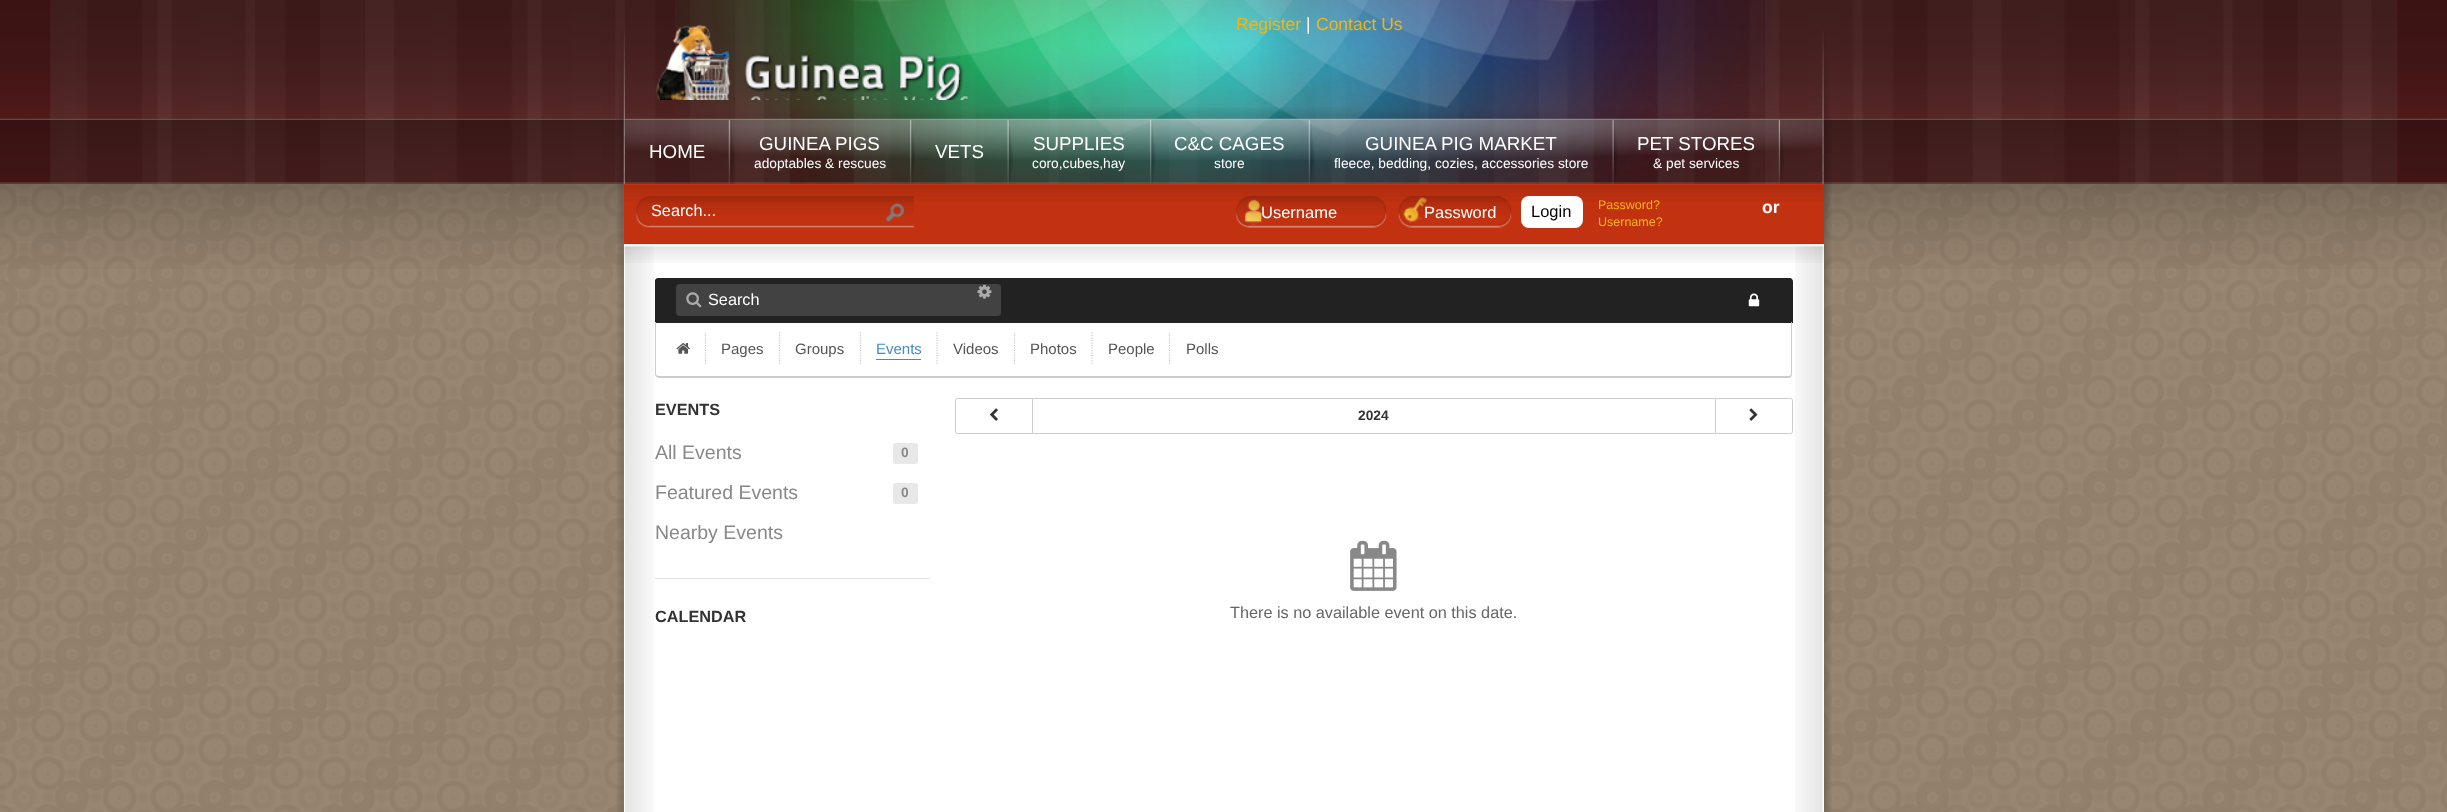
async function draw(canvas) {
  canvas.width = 2447;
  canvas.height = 812;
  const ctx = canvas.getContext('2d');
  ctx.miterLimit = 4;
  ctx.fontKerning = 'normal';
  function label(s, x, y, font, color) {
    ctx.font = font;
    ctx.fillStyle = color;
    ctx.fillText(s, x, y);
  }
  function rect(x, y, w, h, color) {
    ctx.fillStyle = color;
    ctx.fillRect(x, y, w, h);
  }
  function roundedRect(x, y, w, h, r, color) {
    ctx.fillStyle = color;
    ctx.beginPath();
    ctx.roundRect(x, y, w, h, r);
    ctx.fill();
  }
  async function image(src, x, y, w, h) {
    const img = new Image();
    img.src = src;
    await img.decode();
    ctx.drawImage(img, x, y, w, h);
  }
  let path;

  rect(0, 0, 2447, 812, '#632121');
  await image('assets/img1.png', 50, 0, 2348, 184);
  await image('assets/img2.png', 0, 0, 2447, 183);
  await image('assets/img3.png', 675, 0, 1098, 184);
  await image('assets/img4.png', 617, 29, 8, 90);
  await image('assets/img5.png', 1822, 30, 8, 89);
  await image('assets/img6.png', 691, 107, 1088, 12);
  await image('assets/img7.png', 656, 24, 312, 76);
  label('Register', 1236, 30, '17.5px Liberation Sans', '#f7b50c');
  label('|', 1306, 30, '17.5px Liberation Sans', '#fff');
  label('Contact Us', 1316, 30, '17.5px Liberation Sans', '#f7b50c');
  await image('assets/img8.png', 0, 118, 2447, 66);
  await image('assets/img9.png', 0, 118, 2447, 2);
  await image('assets/img10.png', 625, 118, 1198, 42);
  await image('assets/img11.png', 616, 118, 9, 66);
  await image('assets/img12.png', 1822, 118, 10, 66);
  rect(0, 184, 2447, 628, '#a8927b');
  await image('assets/img20.png', 0, 183, 2447, 629);
  await image('assets/img21.png', 0, 183, 2447, 86);
  await image('assets/img13.png', 728, 120, 6, 64);
  label('HOME', 649, 158, '18.75px Liberation Sans', '#fff');
  await image('assets/img14.png', 910, 120, 5, 64);
  label('GUINEA PIGS', 759, 150, '18.75px Liberation Sans', '#fff');
  label('adoptables & rescues', 754, 168, '13.75px Liberation Sans', '#fff');
  await image('assets/img15.png', 1007, 120, 6, 64);
  label('VETS', 935, 158, '18.75px Liberation Sans', '#fff');
  await image('assets/img16.png', 1150, 120, 6, 64);
  label('SUPPLIES', 1033, 150, '18.75px Liberation Sans', '#fff');
  label('coro,cubes,hay', 1032, 168, '13.75px Liberation Sans', '#fff');
  await image('assets/img17.png', 1308, 119, 6, 65);
  label('C&C CAGES', 1174, 150, '18.75px Liberation Sans', '#fff');
  label('store', 1214, 168, '13.75px Liberation Sans', '#fff');
  await image('assets/img18.png', 1612, 120, 6, 64);
  label('GUINEA PIG MARKET', 1365, 150, '18.75px Liberation Sans', '#fff');
  label('fleece, bedding, cozies, accessories store', 1334, 168, '13.75px Liberation Sans', '#fff');
  await image('assets/img19.png', 1778, 119, 6, 65);
  label('PET STORES', 1637, 150, '18.75px Liberation Sans', '#fff');
  label('& pet services', 1653, 168, '13.75px Liberation Sans', '#fff');
  await image('assets/img22.png', 617, 184, 7, 628);
  await image('assets/img23.png', 1824, 184, 8, 628);
  rect(624, 184, 1200, 60, '#c23211');
  await image('assets/img24.png', 624, 185, 1200, 17);
  await image('assets/img25.png', 636, 196, 278, 32);
  await image('assets/img26.png', 886, 203, 18, 19);
  label('Search...', 651, 216, '16.25px Liberation Sans', '#fff');
  await image('assets/img27.png', 1236, 196, 151, 32);
  label('Username', 1261, 218, '16.5px Liberation Sans', '#fff');
  await image('assets/img28.png', 1398, 196, 114, 32);
  label('Password', 1424, 218, '16.5px Liberation Sans', '#fff');
  roundedRect(1521, 196, 62, 32, 8, '#fff');
  label('Login', 1531, 217, '16.5px Liberation Sans', '#000');
  label('Password?', 1598, 209, '12.5px Liberation Sans', '#f7b50c');
  label('or', 1762, 213, 'bold 17.5px Liberation Sans', '#fff');
  label('Username?', 1598, 226, '12.5px Liberation Sans', '#f7b50c');
  rect(624, 244, 1200, 568, '#fff');
  await image('assets/img29.png', 624, 243, 1200, 20);
  await image('assets/img30.png', 625, 246, 29, 566);
  await image('assets/img31.png', 1795, 246, 28, 566);
  ctx.fillStyle = '#222';
  ctx.beginPath();
  ctx.roundRect(655, 278, 1138, 45, [4, 4, 0, 0]);
  ctx.fill();
  path = new Path2D('M659 278H1789C1791 278 1792 279 1792 281V322H655V281C655 279 657 278 659 278ZM659 279H1789C1790 279 1791 280 1791 281V322H656V281C656 280 657 279 659 279Z');
  ctx.fill(path, 'evenodd');
  roundedRect(676, 284, 325, 32, 4, '#424242');
  roundedRect(681, 284, 320, 32, 4, '#424242');
  await image('assets/img32.png', 686, 292, 16, 16);
  label('Search', 708, 305, '16.25px Liberation Sans', '#fff');
  await image('assets/img33.png', 977, 284, 15, 15);
  await image('assets/img34.png', 1748, 293, 12, 14);
  ctx.fillStyle = '#ccc';
  path = new Path2D('M655 322H1792V374C1792 376 1791 378 1789 378H659C657 378 655 376 655 374ZM656 322H1791V374C1791 375 1790 376 1789 376H659C657 376 656 375 656 374Z');
  ctx.fill(path, 'evenodd');
  await image('assets/img35.png', 676, 343, 14, 11);
  path = new Path2D('M705.5 332.5V365');
  ctx.strokeStyle = '#ccc';
  ctx.lineWidth = 1.2;
  ctx.setLineDash([1.25, 1.25]);
  ctx.stroke(path);
  label('Pages', 721, 354, '15px Liberation Sans', '#555');
  path = new Path2D('M779.5 332.5V365');
  ctx.stroke(path);
  label('Groups', 795, 354, '15px Liberation Sans', '#555');
  path = new Path2D('M860.5 332.5V365');
  ctx.stroke(path);
  label('Events', 876, 354, '15px Liberation Sans', '#428bca');
  rect(876, 359, 45, 1, '#428bca');
  path = new Path2D('M937 332.5V365');
  ctx.stroke(path);
  label('Videos', 953, 354, '15px Liberation Sans', '#555');
  path = new Path2D('M1014.5 332.5V365');
  ctx.stroke(path);
  label('Photos', 1030, 354, '15px Liberation Sans', '#555');
  path = new Path2D('M1092 332.5V365');
  ctx.stroke(path);
  label('People', 1108, 354, '15px Liberation Sans', '#555');
  path = new Path2D('M1169.5 332.5V365');
  ctx.stroke(path);
  label('Polls', 1186, 354, '15px Liberation Sans', '#555');
  label('EVENTS', 655, 415, 'bold 16.25px Liberation Sans', '#333');
  label('All Events', 655, 459, '19.5px Liberation Sans', '#888');
  roundedRect(893, 443, 25, 21, 2.5, '#e8e8e8');
  label('0', 901, 457, 'bold 13.75px Liberation Sans', '#888');
  label('Featured Events', 655, 499, '19.5px Liberation Sans', '#888');
  roundedRect(893, 483, 25, 21, 2.5, '#e8e8e8');
  label('0', 901, 497, 'bold 13.75px Liberation Sans', '#888');
  label('Nearby Events', 655, 539, '19.5px Liberation Sans', '#888');
  rect(655, 578, 275, 1, '#e1e1e1');
  label('CALENDAR', 655, 622, 'bold 16.25px Liberation Sans', '#333');
  ctx.beginPath();
  ctx.roundRect(955.5, 398.5, 77, 35, [2, 0, 0, 2]);
  ctx.lineWidth = 1;
  ctx.setLineDash([]);
  ctx.stroke();
  await image('assets/img36.png', 990, 408, 8, 13);
  rect(1033, 398, 682, 1, '#ccc');
  rect(1033, 433, 682, 1, '#ccc');
  label('2024', 1358, 420, 'bold 13.75px Liberation Sans', '#333');
  ctx.beginPath();
  ctx.roundRect(1715.5, 398.5, 77, 35, [0, 2, 2, 0]);
  ctx.stroke();
  await image('assets/img37.png', 1749, 408, 9, 13);
  await image('assets/img38.png', 1350, 540, 47, 51);
  label('There is no available event on this date.', 1230, 618, '16.25px Liberation Sans', '#666');
}

draw(document.querySelector('canvas'));
